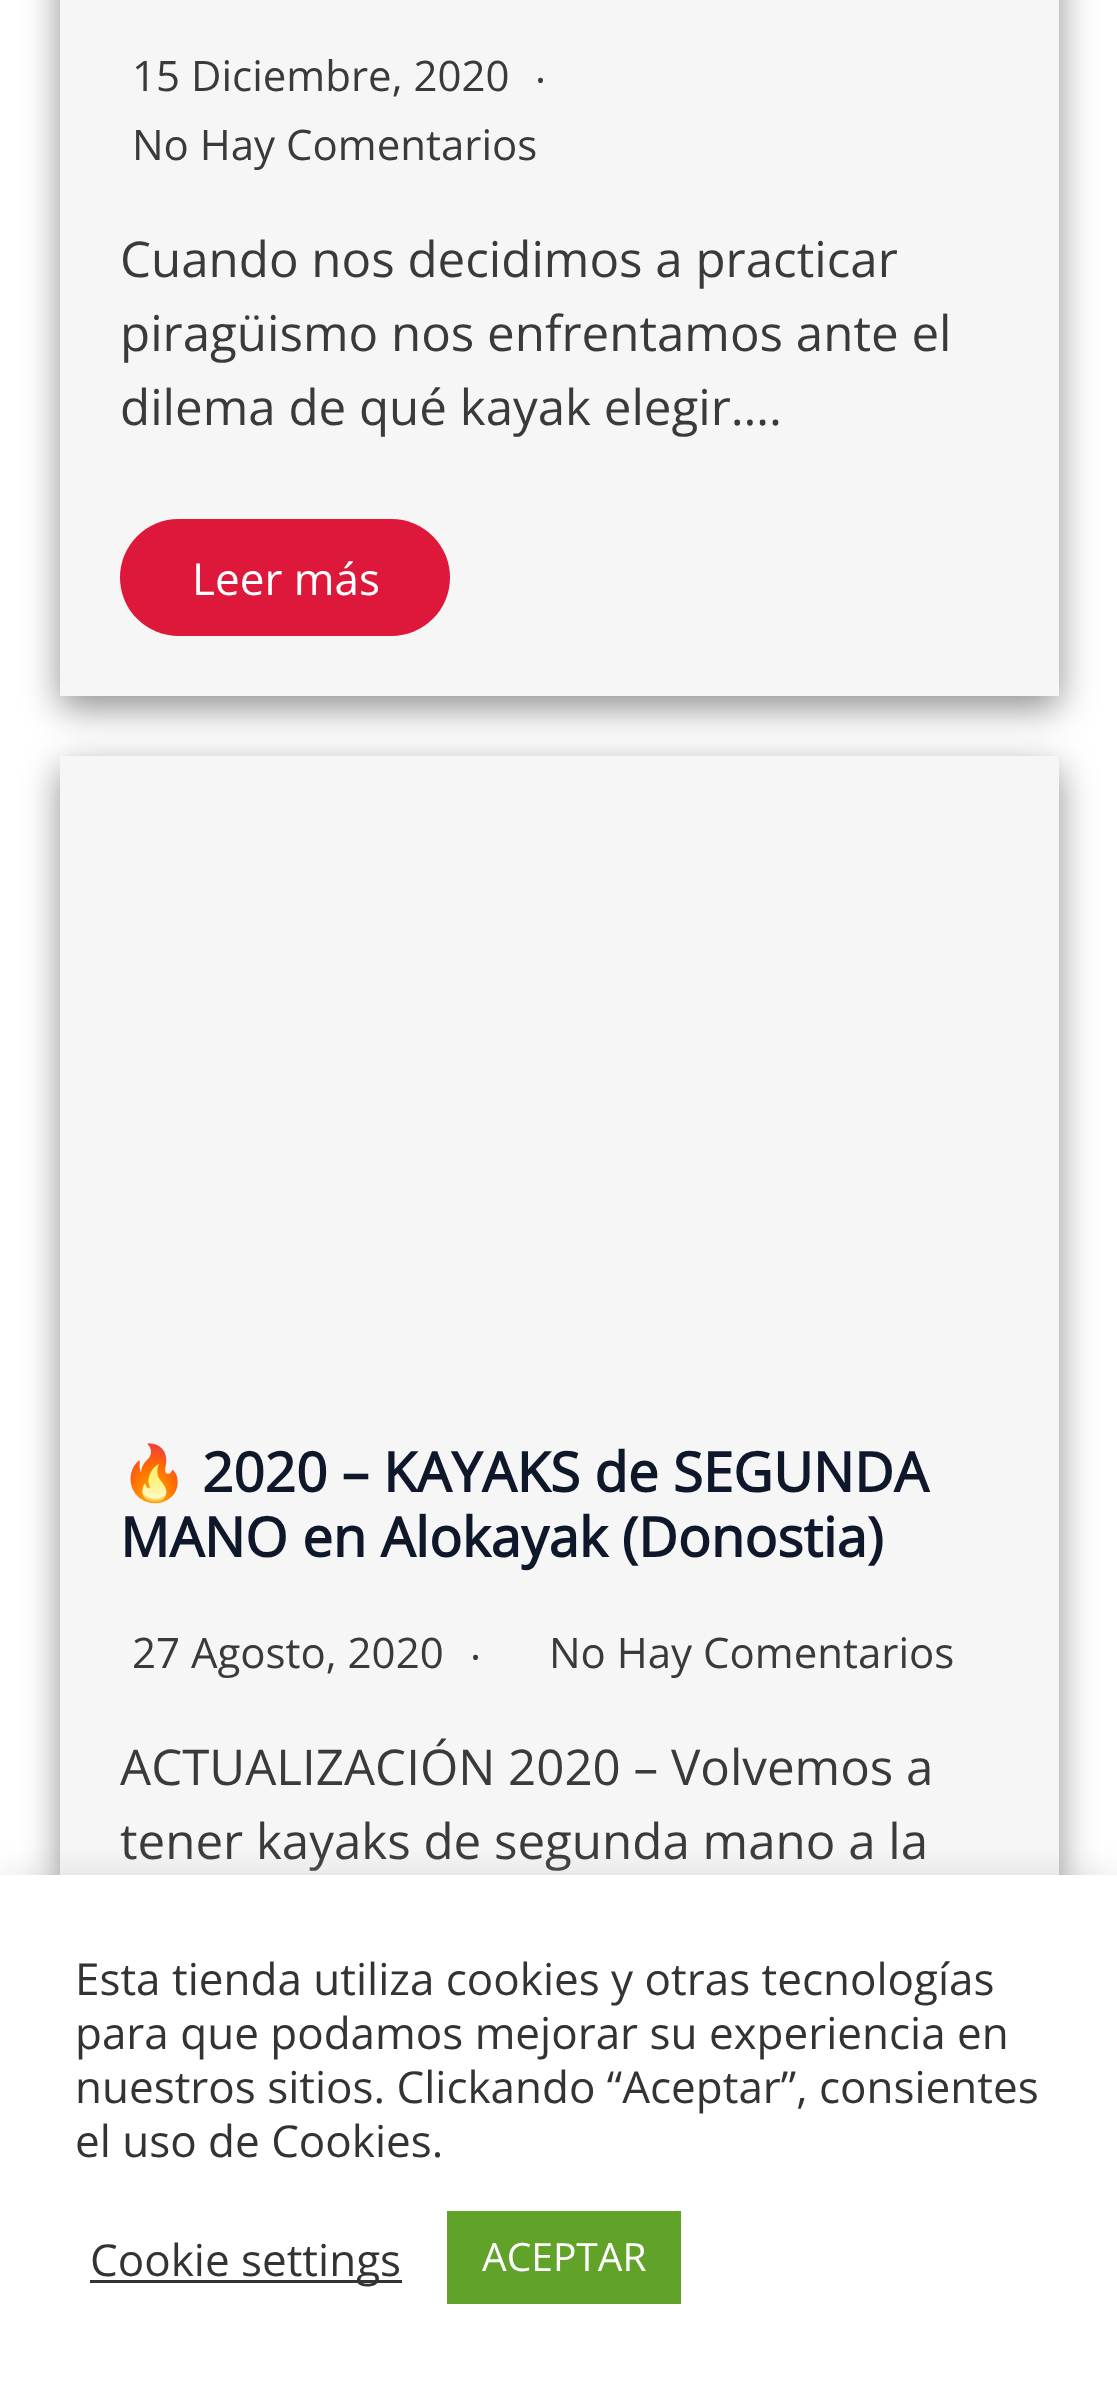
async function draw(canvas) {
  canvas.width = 1117;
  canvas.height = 2393;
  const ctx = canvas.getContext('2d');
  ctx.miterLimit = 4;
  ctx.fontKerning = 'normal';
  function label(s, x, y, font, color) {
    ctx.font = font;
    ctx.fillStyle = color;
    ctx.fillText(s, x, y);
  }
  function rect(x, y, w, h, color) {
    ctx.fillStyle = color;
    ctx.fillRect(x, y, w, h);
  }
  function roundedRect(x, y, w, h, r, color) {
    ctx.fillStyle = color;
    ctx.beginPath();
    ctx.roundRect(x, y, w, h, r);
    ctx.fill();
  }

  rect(0, 0, 1117, 2393, '#fff');
  ctx.fillStyle = '#00000070';
  ctx.filter = 'blur(18px)';
  ctx.beginPath();
  ctx.rect(60, -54, 999, 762);
  ctx.fill();
  ctx.filter = 'none';
  rect(60, 0, 999, 696, '#f6f6f6');
  label('15 Diciembre, 2020', 132, 91, '42px Open Sans', '#3a3a3a');
  label('·', 535, 95, '42px Open Sans', '#3a3a3a');
  label('No Hay Comentarios', 132, 160, '42px Open Sans', '#3a3a3a');
  label('Cuando nos decidimos a practicar', 120, 277, '49.25px Open Sans', '#3a3a3a');
  label('piragüismo nos enfrentamos ante el', 120, 351, '49.25px Open Sans', '#3a3a3a');
  label('dilema de qué kayak elegir….', 120, 425, '49.25px Open Sans', '#3a3a3a');
  roundedRect(120, 519, 330, 117, 58.5, '#dd183b');
  label('Leer más', 192, 595, '44px Open Sans', '#fff');
  ctx.fillStyle = '#00000070';
  ctx.filter = 'blur(18px)';
  ctx.beginPath();
  ctx.rect(60, 768, 999, 1446);
  ctx.fill();
  ctx.filter = 'none';
  rect(60, 756, 999, 1119, '#f6f6f6');
  label('🔥', 120, 1492, 'bold 54.75px Noto Color Emoji', '#0f172a');
  label('2020 – KAYAKS de SEGUNDA', 202, 1492, 'bold 54.75px Open Sans', '#0f172a');
  label('MANO en Alokayak (Donostia)', 120, 1557, 'bold 54.75px Open Sans', '#0f172a');
  label('27 Agosto, 2020', 132, 1668, '42px Open Sans', '#3a3a3a');
  label('·', 470, 1672, '42px Open Sans', '#3a3a3a');
  label('No Hay Comentarios', 549, 1668, '42px Open Sans', '#3a3a3a');
  label('ACTUALIZACIÓN 2020 – Volvemos a', 120, 1785, '49.25px Open Sans', '#3a3a3a');
  label('tener kayaks de segunda mano a la', 120, 1859, '49.25px Open Sans', '#3a3a3a');
  ctx.fillStyle = '#acabab4d';
  ctx.filter = 'blur(15px)';
  ctx.beginPath();
  ctx.rect(0, 1872, 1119, 519);
  ctx.fill();
  ctx.filter = 'none';
  rect(0, 1875, 1117, 518, '#fff');
  label('Esta tienda utiliza cookies y otras tecnologías', 75, 1995, '44px Open Sans', '#333');
  label('para que podamos mejorar su experiencia en', 75, 2049, '44px Open Sans', '#333');
  label('nuestros sitios. Clickando “Aceptar”, consientes', 75, 2103, '44px Open Sans', '#333');
  label('el uso de Cookies.', 75, 2157, '44px Open Sans', '#333');
  rect(90, 2280, 312, 3, '#333');
  label('Cookie settings', 90, 2276, '44px Open Sans', '#333');
  rect(447, 2211, 234, 93, '#61a229');
  label('ACEPTAR', 482, 2271, '39px Open Sans', '#fff');
}

draw(document.querySelector('canvas'));
